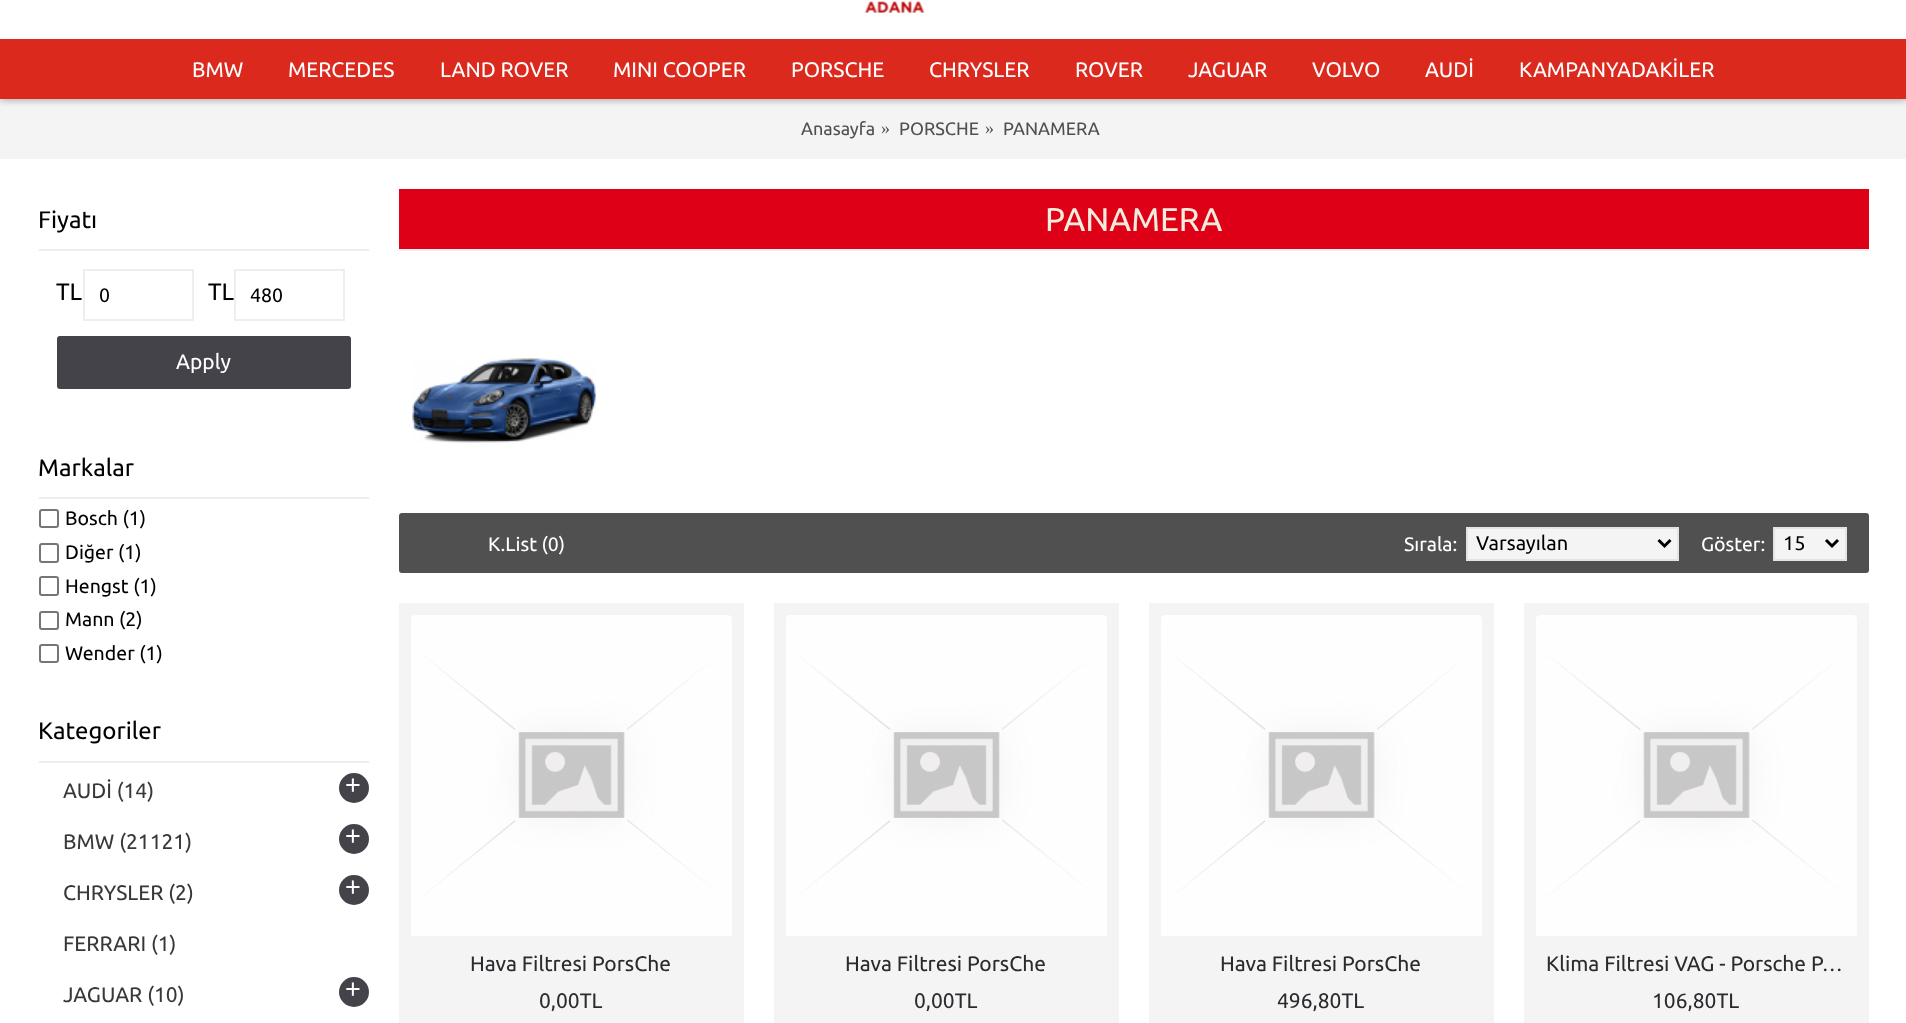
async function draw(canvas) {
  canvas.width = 1906;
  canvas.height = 1023;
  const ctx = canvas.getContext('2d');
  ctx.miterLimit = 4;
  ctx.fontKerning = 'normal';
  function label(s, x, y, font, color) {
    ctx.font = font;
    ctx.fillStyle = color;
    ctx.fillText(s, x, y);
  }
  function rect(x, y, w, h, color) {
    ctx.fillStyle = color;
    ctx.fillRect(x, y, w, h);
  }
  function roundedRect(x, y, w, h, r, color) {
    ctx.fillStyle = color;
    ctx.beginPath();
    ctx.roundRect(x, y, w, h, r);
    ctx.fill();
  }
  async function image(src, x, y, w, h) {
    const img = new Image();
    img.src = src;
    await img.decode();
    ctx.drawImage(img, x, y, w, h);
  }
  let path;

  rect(0, 0, 1906, 1023, '#fff');
  rect(0, 99, 1906, 60, '#f4f4f4');
  ctx.save();
  ctx.beginPath();
  ctx.rect(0, 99, 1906, 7);
  ctx.clip();
  ctx.fillStyle = '#00000066';
  ctx.filter = 'blur(4px)';
  ctx.beginPath();
  ctx.rect(0, -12, 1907, 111);
  ctx.fill();
  ctx.filter = 'none';
  ctx.restore();
  rect(0, 39, 1906, 60, '#dc291e');
  await image('assets/img1.png', 864, 1, 61, 12);
  label('BMW', 192, 77, '21px Ubuntu', '#fff');
  label('MERCEDES', 288, 77, '21px Ubuntu', '#fff');
  label('LAND ROVER', 440, 77, '21px Ubuntu', '#fff');
  label('MINI COOPER', 613, 77, '21px Ubuntu', '#fff');
  label('PORSCHE', 791, 77, '21px Ubuntu', '#fff');
  label('CHRYSLER', 929, 77, '21px Ubuntu', '#fff');
  label('ROVER', 1075, 77, '21px Ubuntu', '#fff');
  label('JAGUAR', 1188, 77, '21px Ubuntu', '#fff');
  label('VOLVO', 1312, 77, '21px Ubuntu', '#fff');
  label('AUDİ', 1425, 77, '21px Ubuntu', '#fff');
  label('KAMPANYADAKİLER', 1519, 77, '21px Ubuntu', '#fff');
  label('Anasayfa', 801, 135, '18px Ubuntu', '#505050');
  label('»', 881, 134, '18px Liberation Serif', '#505050');
  label('PORSCHE', 899, 135, '18px Ubuntu', '#505050');
  label('»', 985, 134, '18px Liberation Serif', '#505050');
  label('PANAMERA', 1003, 135, '18px Ubuntu', '#505050');
  rect(39, 249, 330, 2, '#eee');
  label('Fiyatı', 38, 228, '24px Ubuntu', '#000');
  label('TL', 56, 300, '24px Ubuntu', '#000');
  ctx.strokeStyle = '#eee';
  ctx.lineWidth = 2;
  ctx.strokeRect(84, 270, 109, 50);
  label('0', 99, 302, '19.5px Ubuntu', '#000');
  label('TL', 208, 300, '24px Ubuntu', '#000');
  ctx.strokeRect(235, 270, 109, 50);
  label('480', 250, 302, '19.5px Ubuntu', '#000');
  roundedRect(57, 336, 294, 53, 3, '#444349');
  label('Apply', 176, 369, '21px Ubuntu', '#fff');
  rect(39, 497, 330, 2, '#eee');
  label('Markalar', 38, 476, '24px Ubuntu', '#000');
  ctx.beginPath();
  ctx.roundRect(40, 510, 18, 17, 2);
  ctx.strokeStyle = '#767676';
  ctx.stroke();
  label('Bosch (1)', 65, 525, '19.5px Ubuntu', '#000');
  ctx.beginPath();
  ctx.roundRect(40, 544, 18, 18, 2);
  ctx.stroke();
  label('Diğer (1)', 65, 559, '19.5px Ubuntu', '#000');
  ctx.beginPath();
  ctx.roundRect(40, 577, 18, 18, 2);
  ctx.stroke();
  label('Hengst (1)', 65, 593, '19.5px Ubuntu', '#000');
  ctx.beginPath();
  ctx.roundRect(40, 612, 18, 17, 2);
  ctx.stroke();
  label('Mann (2)', 65, 626, '19.5px Ubuntu', '#000');
  ctx.beginPath();
  ctx.roundRect(40, 645, 18, 17, 2);
  ctx.stroke();
  label('Wender (1)', 65, 660, '19.5px Ubuntu', '#000');
  rect(39, 761, 330, 2, '#eee');
  label('Kategoriler', 38, 739, '24px Ubuntu', '#000');
  label('AUDİ (14)', 63, 798, '21px Ubuntu', '#383838');
  ctx.fillStyle = '#444349';
  ctx.beginPath();
  ctx.arc(354, 788, 15, 0, 2 * Math.PI);
  ctx.fill();
  label('+', 345, 794, '27px Liberation Sans', '#fff');
  label('BMW (21121)', 63, 849, '21px Ubuntu', '#383838');
  ctx.fillStyle = '#444349';
  ctx.beginPath();
  ctx.arc(354, 839, 15, 0, 2 * Math.PI);
  ctx.fill();
  label('+', 345, 845, '27px Liberation Sans', '#fff');
  label('CHRYSLER (2)', 63, 900, '21px Ubuntu', '#383838');
  ctx.fillStyle = '#444349';
  ctx.beginPath();
  ctx.arc(354, 890, 15, 0, 2 * Math.PI);
  ctx.fill();
  label('+', 345, 896, '27px Liberation Sans', '#fff');
  label('FERRARI (1)', 63, 951, '21px Ubuntu', '#383838');
  label('JAGUAR (10)', 63, 1002, '21px Ubuntu', '#383838');
  ctx.fillStyle = '#444349';
  ctx.beginPath();
  ctx.arc(354, 992, 15, 0, 2 * Math.PI);
  ctx.fill();
  label('+', 345, 998, '27px Liberation Sans', '#fff');
  rect(399, 189, 1470, 60, '#dd0017');
  rect(399, 249, 1470, 2, '#eee');
  label('PANAMERA', 1045, 231, '33px Ubuntu', '#f5ecdd');
  await image('assets/img2.png', 412, 358, 185, 85);
  roundedRect(399, 513, 1470, 60, 3, '#505050');
  label('K.List (0)', 488, 551, '19.5px Ubuntu', '#fff');
  label('Sırala:', 1404, 551, '19.5px Ubuntu', '#fff');
  ctx.fillStyle = '#f4f4f4';
  ctx.beginPath();
  ctx.rect(1467, 528, 211, 32);
  ctx.fill();
  ctx.strokeStyle = '#e4e4e4';
  ctx.stroke();
  path = new Path2D('M1658.5 540L1664.5 546L1670.5 540');
  ctx.strokeStyle = '#000';
  ctx.lineWidth = 3;
  ctx.stroke(path);
  label('Varsayılan', 1476, 550, '20px Ubuntu', '#000');
  label('Göster:', 1701, 551, '19.5px Ubuntu', '#fff');
  ctx.fillStyle = '#f4f4f4';
  ctx.beginPath();
  ctx.rect(1774, 528, 72, 32);
  ctx.fill();
  ctx.strokeStyle = '#e4e4e4';
  ctx.lineWidth = 2;
  ctx.stroke();
  path = new Path2D('M1826 540L1832 546L1838 540');
  ctx.strokeStyle = '#000';
  ctx.lineWidth = 3;
  ctx.stroke(path);
  label('15', 1783, 550, '20px Ubuntu', '#000');
  rect(399, 603, 345, 420, '#f4f4f4');
  await image('assets/img3.png', 411, 615, 321, 321);
  label('Hava Filtresi PorsChe', 470, 971, '21px Ubuntu', '#2a2b2e');
  label('0,00TL', 539, 1008, '21px Ubuntu', '#2a2b2e');
  rect(774, 603, 345, 420, '#f4f4f4');
  await image('assets/img4.png', 786, 615, 321, 321);
  label('Hava Filtresi PorsChe', 845, 971, '21px Ubuntu', '#2a2b2e');
  label('0,00TL', 914, 1008, '21px Ubuntu', '#2a2b2e');
  rect(1149, 603, 345, 420, '#f4f4f4');
  await image('assets/img3.png', 1161, 615, 321, 321);
  label('Hava Filtresi PorsChe', 1220, 971, '21px Ubuntu', '#2a2b2e');
  label('496,80TL', 1277, 1008, '21px Ubuntu', '#2a2b2e');
  rect(1524, 603, 345, 420, '#f4f4f4');
  await image('assets/img4.png', 1536, 615, 321, 321);
  label('Klima Filtresi VAG - Porsche P…', 1546, 971, '21px Ubuntu', '#2a2b2e');
  label('106,80TL', 1652, 1008, '21px Ubuntu', '#2a2b2e');
}

draw(document.querySelector('canvas'));
